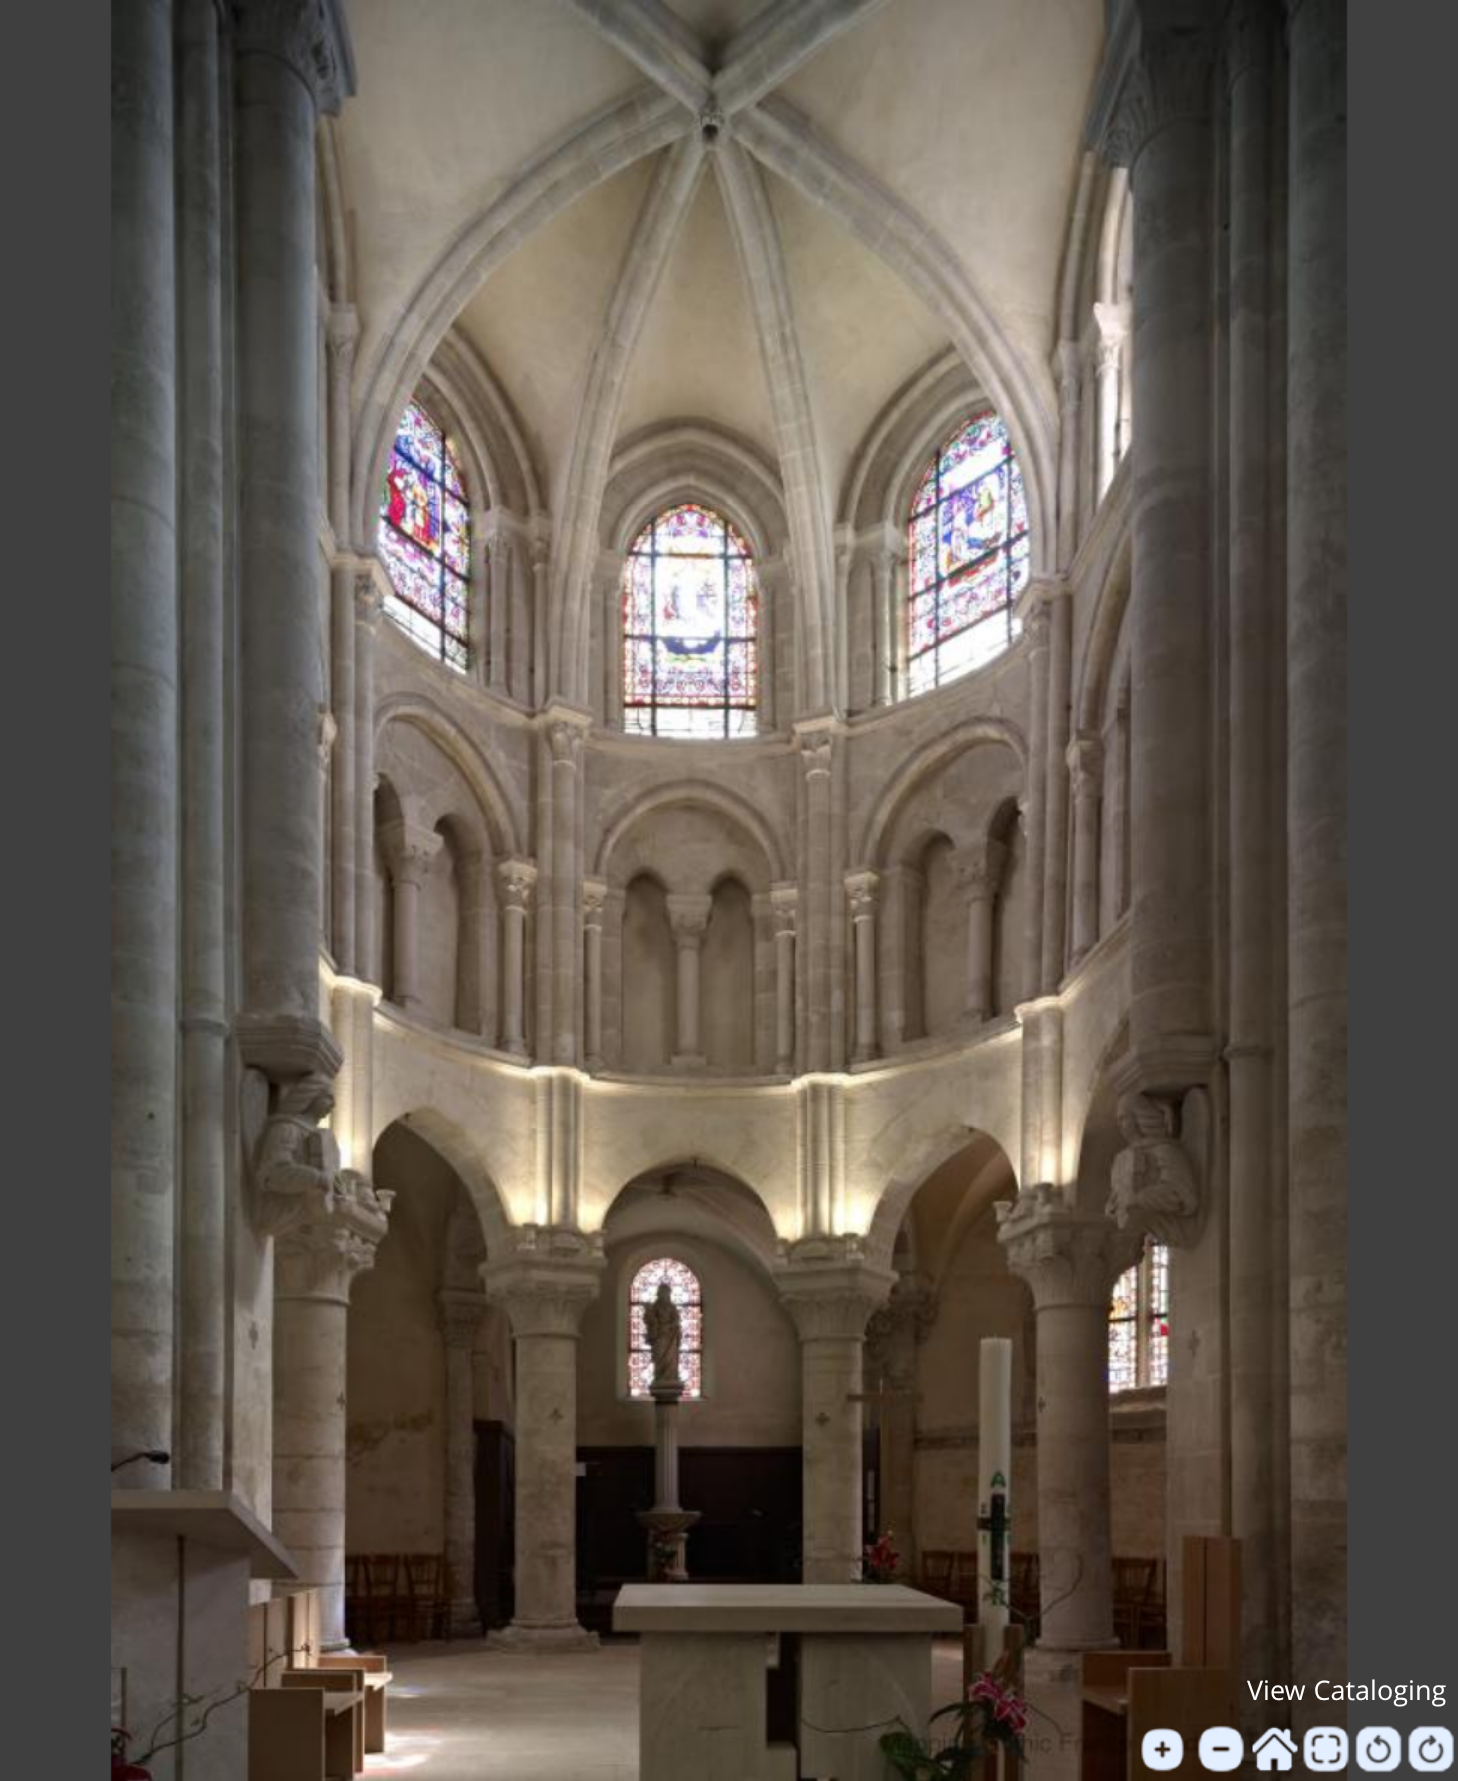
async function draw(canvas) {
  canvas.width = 1458;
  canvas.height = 1781;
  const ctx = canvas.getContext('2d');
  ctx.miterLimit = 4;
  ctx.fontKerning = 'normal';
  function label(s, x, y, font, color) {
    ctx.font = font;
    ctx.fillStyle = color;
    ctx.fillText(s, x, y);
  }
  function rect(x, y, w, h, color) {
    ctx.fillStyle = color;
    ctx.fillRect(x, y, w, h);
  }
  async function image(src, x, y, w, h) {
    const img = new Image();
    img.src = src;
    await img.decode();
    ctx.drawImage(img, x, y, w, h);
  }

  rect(0, 0, 1458, 1781, '#3f3f3f');
  await image('assets/img1.png', 110, 0, 1238, 1781);
  await image('assets/img2.png', 1141, 1727, 43, 45);
  await image('assets/img3.png', 1141, 1728, 43, 44);
  await image('assets/img4.png', 1197, 1725, 48, 48);
  await image('assets/img5.png', 1198, 1726, 46, 46);
  await image('assets/img6.png', 1252, 1726, 46, 46);
  await image('assets/img7.png', 1252, 1727, 46, 44);
  await image('assets/img8.png', 1302, 1725, 48, 48);
  await image('assets/img9.png', 1303, 1726, 46, 46);
  await image('assets/img10.png', 1355, 1725, 48, 48);
  await image('assets/img11.png', 1355, 1726, 47, 46);
  await image('assets/img12.png', 1407, 1725, 48, 48);
  await image('assets/img13.png', 1408, 1726, 46, 46);
  ctx.wordSpacing = '1px';
  label('View Cataloging', 1247, 1700, '27px Open Sans', '#fff');
}

draw(document.querySelector('canvas'));
